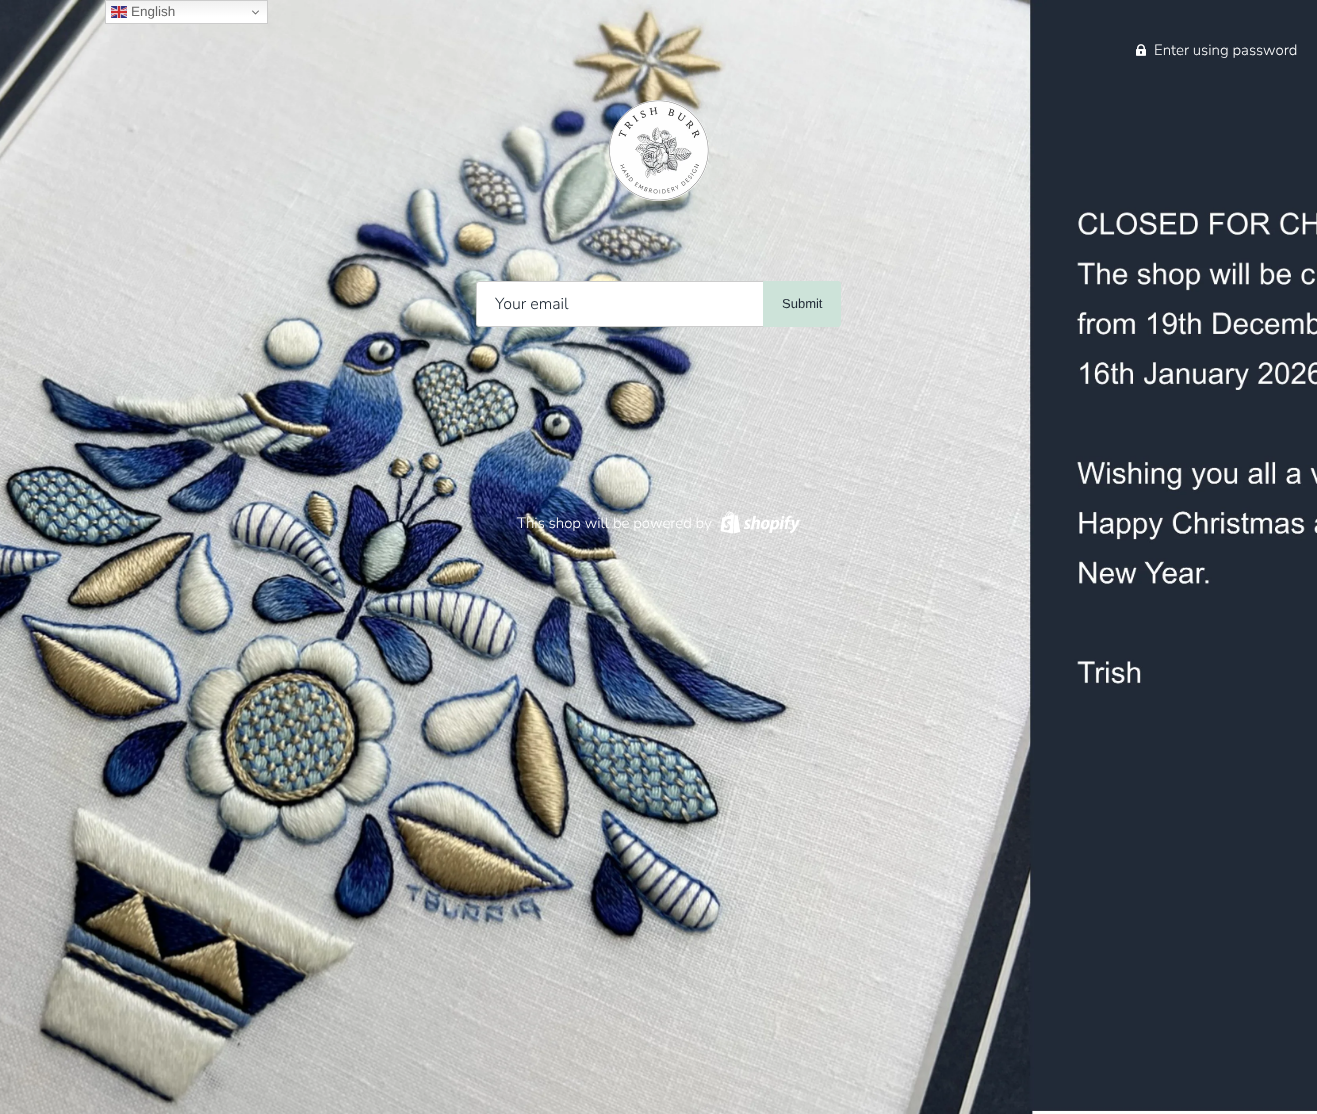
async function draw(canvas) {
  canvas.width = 1317;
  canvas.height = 1114;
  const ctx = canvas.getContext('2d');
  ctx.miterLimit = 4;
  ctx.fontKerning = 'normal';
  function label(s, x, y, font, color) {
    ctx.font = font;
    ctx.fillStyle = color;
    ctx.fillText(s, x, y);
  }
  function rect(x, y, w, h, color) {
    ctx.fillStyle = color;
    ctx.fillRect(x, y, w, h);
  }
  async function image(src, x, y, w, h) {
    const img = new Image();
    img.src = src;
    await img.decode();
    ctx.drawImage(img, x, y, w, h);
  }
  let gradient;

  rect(0, 0, 1317, 1114, '#fff');
  await image('assets/img1.png', 0, 0, 1317, 1114);
  gradient = ctx.createLinearGradient(187, 0, 187, 24);
  gradient.addColorStop(0, '#efefef');
  gradient.addColorStop(0.7, '#fff');
  ctx.fillStyle = gradient;
  ctx.fillRect(106, 1, 161, 22);
  ctx.strokeStyle = '#ccc';
  ctx.strokeRect(105.5, 0.5, 162, 23);
  await image('assets/img2.png', 111, 6, 16, 12);
  label('English', 131, 16, '13.5px Liberation Sans', '#666');
  await image('assets/img3.png', 252, 10, 7, 5);
  await image('assets/img4.png', 1136, 44, 10, 12);
  label('Enter using password', 1154, 55, '300 15px Nunito Sans', '#fff');
  await image('assets/img5.png', 609, 100, 100, 101);
  ctx.beginPath();
  ctx.roundRect(476.5, 281.5, 287, 45, [2.5, 0, 0, 2.5]);
  ctx.fill();
  ctx.stroke();
  label('Your email', 495, 309, '300 16px Nunito Sans', '#212b36');
  ctx.fillStyle = '#cde3d9';
  ctx.beginPath();
  ctx.roundRect(763.5, 281.5, 77, 45, [0, 2.5, 2.5, 0]);
  ctx.fill();
  ctx.strokeStyle = '#cde3d9';
  ctx.stroke();
  label('Submit', 782, 308, '13px Liberation Sans', '#212b36');
  label('This shop will be powered by', 517, 528, '300 15px Nunito Sans', '#fff');
  await image('assets/img6.png', 720, 511, 80, 23);
}

draw(document.querySelector('canvas'));
